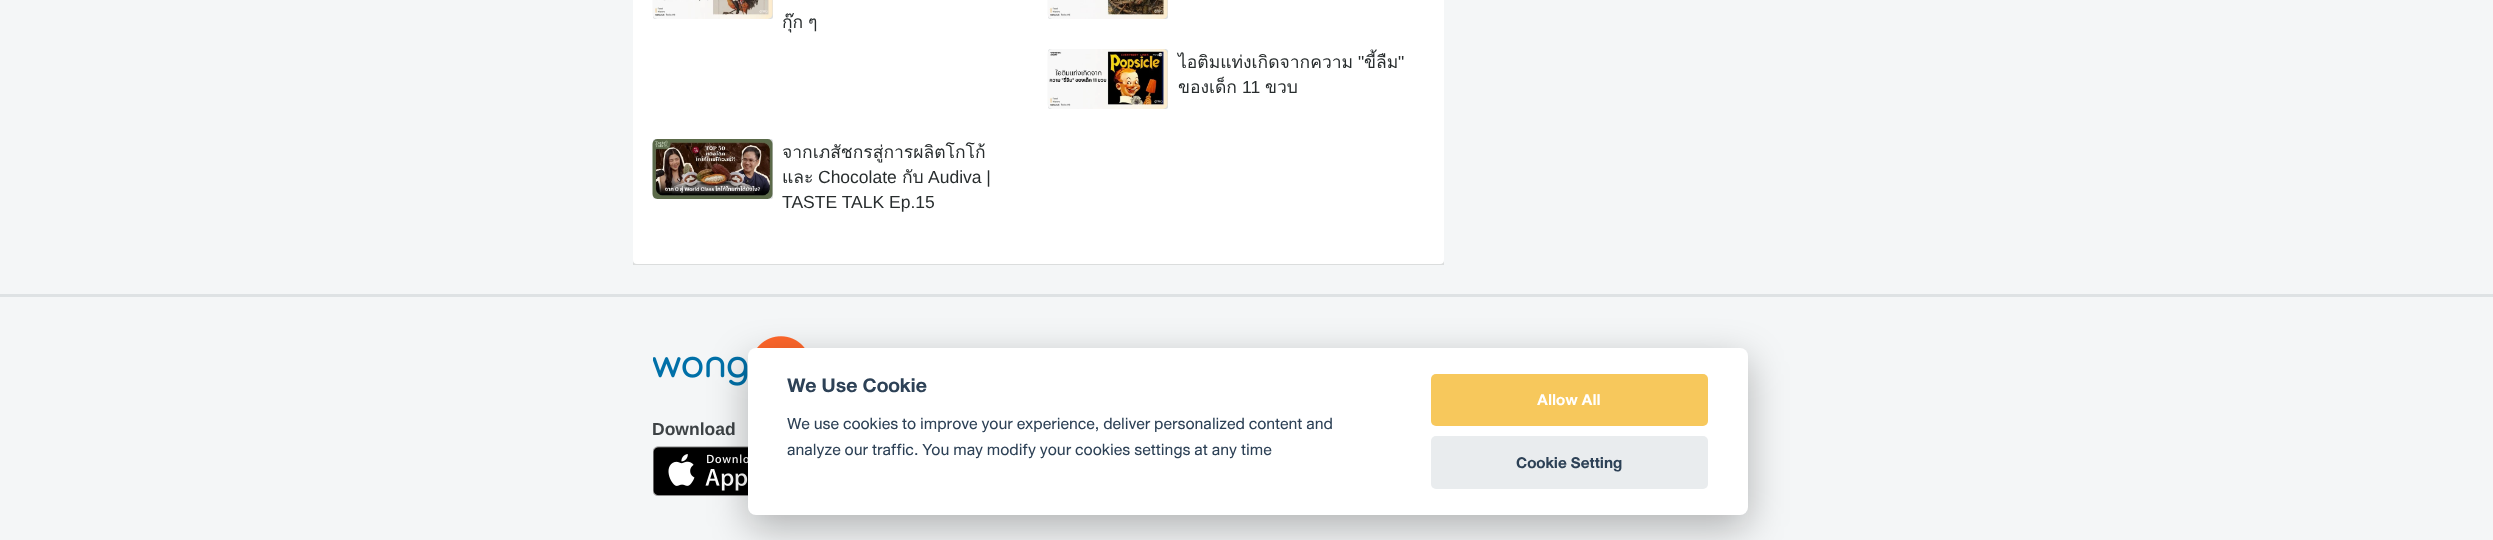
async function draw(canvas) {
  canvas.width = 2493;
  canvas.height = 540;
  const ctx = canvas.getContext('2d');
  ctx.miterLimit = 4;
  ctx.fontKerning = 'normal';
  function label(s, x, y, font, color) {
    ctx.font = font;
    ctx.fillStyle = color;
    ctx.fillText(s, x, y);
  }
  function rect(x, y, w, h, color) {
    ctx.fillStyle = color;
    ctx.fillRect(x, y, w, h);
  }
  function roundedRect(x, y, w, h, r, color) {
    ctx.fillStyle = color;
    ctx.beginPath();
    ctx.roundRect(x, y, w, h, r);
    ctx.fill();
  }
  async function image(src, x, y, w, h) {
    const img = new Image();
    img.src = src;
    await img.decode();
    ctx.drawImage(img, x, y, w, h);
  }

  rect(0, 0, 2493, 540, '#f4f6f7');
  ctx.fillStyle = '#0000001a';
  ctx.filter = 'blur(0.5px)';
  ctx.beginPath();
  ctx.rect(633, -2, 811, 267);
  ctx.fill();
  ctx.filter = 'none';
  roundedRect(633, -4, 811, 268, 4, '#fff');
  roundedRect(1048, -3, 120, 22, 2.5, '#dcdfe0');
  await image('assets/img1.png', 1047, 0, 121, 19);
  roundedRect(653, -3, 120, 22, 2.5, '#dcdfe0');
  await image('assets/img2.png', 652, 0, 121, 19);
  ctx.wordSpacing = '-1px';
  label('กุ๊ก ๆ', 782, 28, '17.5px Loma', '#282d2e');
  roundedRect(1048, 49, 120, 60, 2.5, '#dcdfe0');
  await image('assets/img3.png', 1047, 49, 121, 60);
  ctx.wordSpacing = '0px';
  label('ไอติมแท่งเกิดจากความ', 1178, 68, '17.5px Loma', '#282d2e');
  label('"', 1358, 68, '17.5px Liberation Sans', '#282d2e');
  label('ขี้ลืม', 1364, 68, '17.5px Loma', '#282d2e');
  label('"', 1398, 68, '17.5px Liberation Sans', '#282d2e');
  label('ของเด็ก', 1178, 93, '17.5px Loma', '#282d2e');
  label('11', 1242, 93, '17.5px Liberation Sans', '#282d2e');
  label('ขวบ', 1265, 93, '17.5px Loma', '#282d2e');
  roundedRect(653, 139, 120, 60, 2.5, '#dcdfe0');
  await image('assets/img4.png', 652, 139, 121, 60);
  label('จากเภสัชกรสู่การผลิตโกโก้', 782, 158, '17.5px Loma', '#282d2e');
  label('และ', 782, 183, '17.5px Loma', '#282d2e');
  label('Chocolate', 818, 183, '17.5px Liberation Sans', '#282d2e');
  label('กับ', 902, 183, '17.5px Loma', '#282d2e');
  label('Audiva |', 928, 183, '17.5px Liberation Sans', '#282d2e');
  label('TASTE TALK Ep.15', 782, 208, '17.5px Liberation Sans', '#282d2e');
  rect(0, 294, 2493, 3, '#dee2e4');
  await image('assets/img5.png', 653, 336, 152, 50);
  label('Download', 652, 435, 'bold 17.5px Liberation Sans', '#3d4245');
  await image('assets/img6.png', 653, 446, 95, 50);
  ctx.fillStyle = '#02020347';
  ctx.filter = 'blur(19px)';
  ctx.beginPath();
  ctx.roundRect(748, 360, 1000, 168, 8);
  ctx.fill();
  ctx.filter = 'none';
  roundedRect(748, 348, 1000, 167, 8, '#fff');
  label('We Use Cookie', 787, 392, 'bold 21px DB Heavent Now', '#2d4156');
  label('We use cookies to improve your experience, deliver personalized content and', 787, 429, '17px DB Heavent Now', '#2d4156');
  label('analyze our traffic. You may modify your cookies settings at any time', 787, 455, '17px DB Heavent Now', '#2d4156');
  roundedRect(1431, 374, 277, 52, 5, '#f7c85c');
  label('Allow All', 1537, 405, 'bold 16.5px DB Heavent Now', '#fff');
  roundedRect(1431, 436, 277, 53, 5, '#e9ecee');
  label('Cookie Setting', 1516, 468, 'bold 16.5px DB Heavent Now', '#2d4156');
}

draw(document.querySelector('canvas'));
